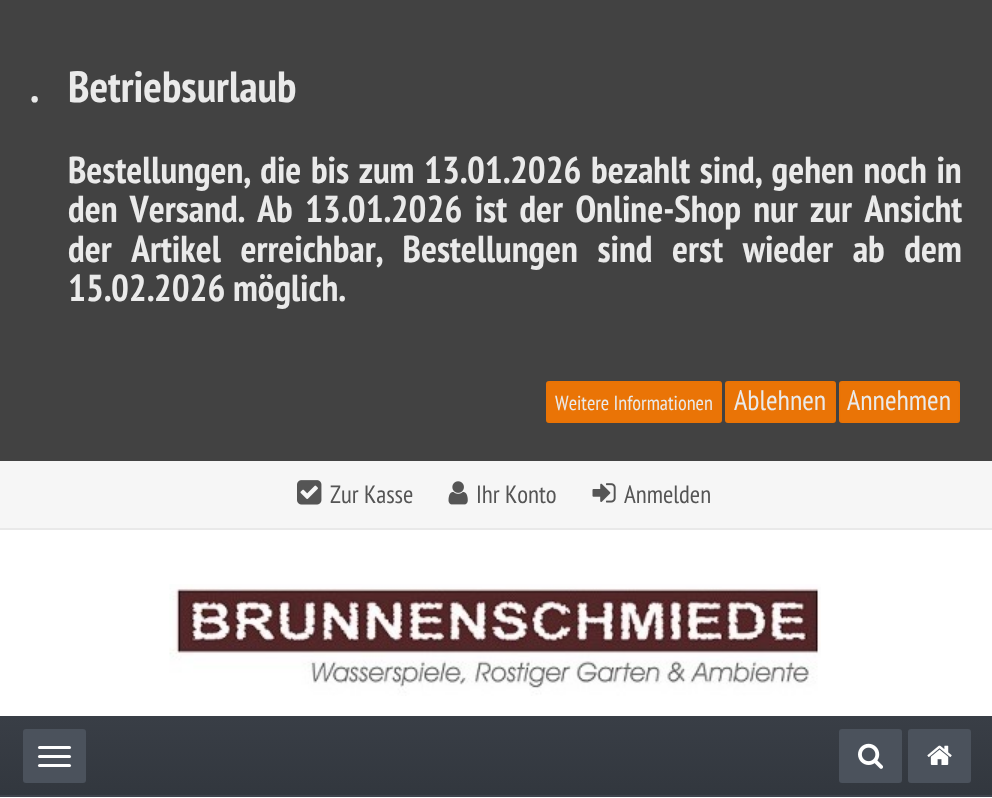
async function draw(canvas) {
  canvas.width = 992;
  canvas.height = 798;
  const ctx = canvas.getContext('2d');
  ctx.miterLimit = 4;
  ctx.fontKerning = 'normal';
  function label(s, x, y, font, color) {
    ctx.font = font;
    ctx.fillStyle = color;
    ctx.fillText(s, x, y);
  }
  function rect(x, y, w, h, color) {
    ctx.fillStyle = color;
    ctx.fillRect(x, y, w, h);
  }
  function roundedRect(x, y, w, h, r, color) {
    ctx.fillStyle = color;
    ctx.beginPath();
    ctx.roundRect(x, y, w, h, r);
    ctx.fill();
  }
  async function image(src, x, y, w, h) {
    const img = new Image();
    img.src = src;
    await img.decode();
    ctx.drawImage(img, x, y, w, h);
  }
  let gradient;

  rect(0, 0, 992, 798, '#fff');
  rect(0, 0, 992, 461, '#424242');
  label('.', 30, 102, 'bold 42px PT Sans Narrow', '#eaeaea');
  label('Betriebsurlaub', 68, 102, 'bold 42px PT Sans Narrow', '#eaeaea');
  ctx.wordSpacing = '2px';
  label('Bestellungen, die bis zum 13.01.2026 bezahlt sind, gehen noch in', 68, 183, 'bold 36px PT Sans Narrow', '#eaeaea');
  ctx.wordSpacing = '4.75px';
  label('den Versand. Ab 13.01.2026 ist der Online-Shop nur zur Ansicht', 68, 222, 'bold 36px PT Sans Narrow', '#eaeaea');
  ctx.wordSpacing = '12px';
  label('der Artikel erreichbar, Bestellungen sind erst wieder ab dem', 68, 262, 'bold 36px PT Sans Narrow', '#eaeaea');
  ctx.wordSpacing = '0px';
  label('15.02.2026 möglich.', 68, 301, 'bold 36px PT Sans Narrow', '#eaeaea');
  ctx.fillStyle = '#ea7406';
  ctx.beginPath();
  ctx.roundRect(547, 382, 174, 40, 2);
  ctx.fill();
  ctx.strokeStyle = '#ea7304';
  ctx.lineWidth = 2;
  ctx.stroke();
  label('Weitere Informationen', 555, 410, '19.5px PT Sans Narrow', '#eaeaea');
  ctx.fillStyle = '#ea7406';
  ctx.beginPath();
  ctx.roundRect(726, 382, 109, 40, 2);
  ctx.fill();
  ctx.stroke();
  label('Ablehnen', 734, 410, '27px PT Sans Narrow', '#eaeaea');
  ctx.fillStyle = '#ea7406';
  ctx.beginPath();
  ctx.roundRect(840, 382, 119, 40, 2);
  ctx.fill();
  ctx.stroke();
  label('Annehmen', 847, 410, '27px PT Sans Narrow', '#eaeaea');
  rect(0, 461, 992, 67, '#f6f6f6');
  rect(0, 528, 992, 2, '#e9e9e9');
  await image('assets/img1.png', 297, 480, 25, 25);
  label('Zur Kasse', 330, 503, '24px PT Sans Narrow', '#555');
  await image('assets/img2.png', 448, 481, 20, 24);
  label('Ihr Konto', 476, 503, '24px PT Sans Narrow', '#555');
  await image('assets/img3.png', 592, 483, 24, 20);
  label('Anmelden', 624, 503, '24px PT Sans Narrow', '#555');
  await image('assets/img4.png', 169, 584, 652, 112);
  gradient = ctx.createLinearGradient(497, 717, 497, 797);
  gradient.addColorStop(0, '#393e46');
  gradient.addColorStop(1, '#32373e');
  ctx.fillStyle = gradient;
  ctx.fillRect(0, 718, 992, 77);
  rect(0, 716, 992, 2, '#393e46');
  rect(0, 795, 992, 2, '#3e434c');
  roundedRect(23, 729, 63, 54, 3, '#4b525c');
  roundedRect(38, 746, 33, 3, 1.5, '#fff');
  roundedRect(38, 755, 33, 3, 1.5, '#fff');
  roundedRect(38, 764, 33, 3, 1.5, '#fff');
  roundedRect(839, 729, 63, 54, 3, '#4b525c');
  await image('assets/img5.png', 858, 743, 25, 26);
  roundedRect(908, 729, 63, 54, 3, '#4b525c');
  await image('assets/img6.png', 927, 745, 25, 20);
}

draw(document.querySelector('canvas'));
